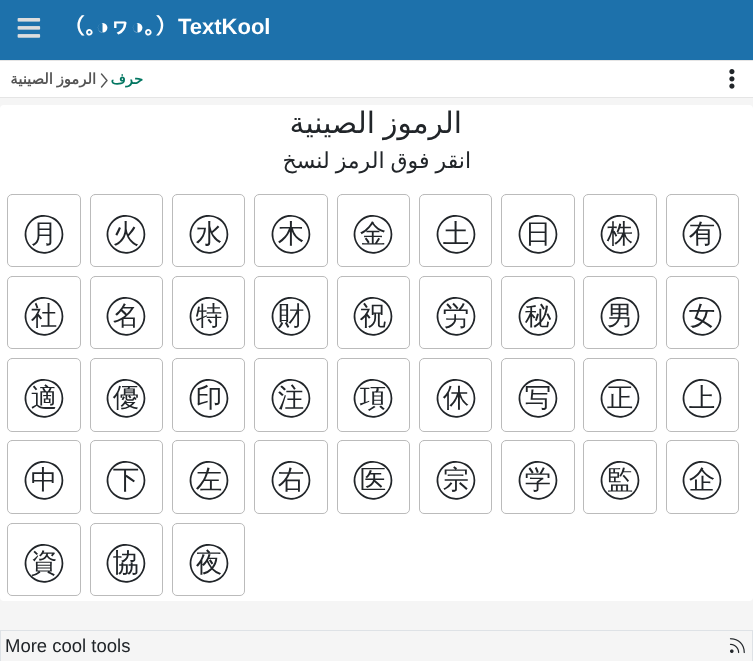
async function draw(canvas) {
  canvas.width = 753;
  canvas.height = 661;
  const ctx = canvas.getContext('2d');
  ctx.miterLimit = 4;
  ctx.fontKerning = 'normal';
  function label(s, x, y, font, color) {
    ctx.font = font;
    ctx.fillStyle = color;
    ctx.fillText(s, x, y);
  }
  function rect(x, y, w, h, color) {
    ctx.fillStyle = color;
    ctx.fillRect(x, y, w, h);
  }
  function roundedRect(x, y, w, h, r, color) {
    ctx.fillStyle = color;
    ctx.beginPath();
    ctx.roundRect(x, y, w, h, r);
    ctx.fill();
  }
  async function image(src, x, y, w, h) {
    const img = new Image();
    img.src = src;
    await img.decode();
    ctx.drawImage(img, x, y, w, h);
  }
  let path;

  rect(0, 0, 753, 661, '#f5f5f5');
  rect(0, 0, 753, 60, '#1d71ab');
  rect(0, 60, 753, 1, '#e5e5e5');
  await image('assets/img1.png', 17, 18, 24, 20);
  label('（｡', 63, 34, 'bold 22px IPAGothic', '#fff');
  label('◑', 96, 34, 'bold 22px Liberation Sans', '#fff');
  label('ヮ', 109, 34, 'bold 22px IPAGothic', '#fff');
  label('◑', 131, 34, 'bold 22px Liberation Sans', '#fff');
  label('｡）', 144, 34, 'bold 22px IPAGothic', '#fff');
  label('TextKool', 178, 34, 'bold 22px Liberation Sans', '#fff');
  rect(0, 61, 753, 36, '#fff');
  rect(0, 97, 753, 1, '#e5e5e5');
  ctx.wordSpacing = '-1px';
  ctx.direction = 'rtl';
  label('الرموز الصينية', 96, 84, 'bold 14.75px DejaVu Sans', '#555');
  path = new Path2D('M101.5 87L107 80.5L101.5 74');
  ctx.strokeStyle = '#555';
  ctx.lineWidth = 1.4;
  ctx.lineCap = 'round';
  ctx.lineJoin = 'round';
  ctx.stroke(path);
  ctx.wordSpacing = '0px';
  label('حرف', 143, 84, 'bold 14.75px DejaVu Sans', '#027661');
  await image('assets/img2.png', 729, 69, 6, 20);
  roundedRect(0, 105, 753, 496, 4, '#fff');
  ctx.wordSpacing = '-1px';
  label('الرموز الصينية', 462, 133, '29.5px DejaVu Sans', '#212529');
  label('انقر فوق الرمز لنسخ', 471, 168, '22px DejaVu Sans', '#212529');
  ctx.beginPath();
  ctx.roundRect(7.5, 194.5, 73, 72, 4.5);
  ctx.strokeStyle = '#bbb';
  ctx.lineWidth = 1;
  ctx.lineJoin = 'miter';
  ctx.stroke();
  ctx.wordSpacing = '0px';
  ctx.direction = 'ltr';
  label('㊊', 22, 247, '500 44px WenQuanYi Zen Hei', '#212529');
  ctx.beginPath();
  ctx.roundRect(90.5, 194.5, 72, 72, 4.5);
  ctx.stroke();
  label('㊋', 104, 247, '500 44px WenQuanYi Zen Hei', '#212529');
  ctx.beginPath();
  ctx.roundRect(172.5, 194.5, 72, 72, 4.5);
  ctx.stroke();
  label('㊌', 187, 247, '500 44px WenQuanYi Zen Hei', '#212529');
  ctx.beginPath();
  ctx.roundRect(254.5, 194.5, 73, 72, 4.5);
  ctx.stroke();
  label('㊍', 269, 247, '500 44px WenQuanYi Zen Hei', '#212529');
  ctx.beginPath();
  ctx.roundRect(337.5, 194.5, 72, 72, 4.5);
  ctx.stroke();
  label('㊎', 351, 247, '500 44px WenQuanYi Zen Hei', '#212529');
  ctx.beginPath();
  ctx.roundRect(419.5, 194.5, 72, 72, 4.5);
  ctx.stroke();
  label('㊏', 434, 247, '500 44px WenQuanYi Zen Hei', '#212529');
  ctx.beginPath();
  ctx.roundRect(501.5, 194.5, 73, 72, 4.5);
  ctx.stroke();
  label('㊐', 516, 247, '500 44px WenQuanYi Zen Hei', '#212529');
  ctx.beginPath();
  ctx.roundRect(583.5, 194.5, 73, 72, 4.5);
  ctx.stroke();
  label('㊑', 598, 247, '500 44px WenQuanYi Zen Hei', '#212529');
  ctx.beginPath();
  ctx.roundRect(666.5, 194.5, 72, 72, 4.5);
  ctx.stroke();
  label('㊒', 680, 247, '500 44px WenQuanYi Zen Hei', '#212529');
  ctx.beginPath();
  ctx.roundRect(7.5, 276.5, 73, 72, 4.5);
  ctx.stroke();
  label('㊓', 22, 329, '500 44px WenQuanYi Zen Hei', '#212529');
  ctx.beginPath();
  ctx.roundRect(90.5, 276.5, 72, 72, 4.5);
  ctx.stroke();
  label('㊔', 104, 329, '500 44px WenQuanYi Zen Hei', '#212529');
  ctx.beginPath();
  ctx.roundRect(172.5, 276.5, 72, 72, 4.5);
  ctx.stroke();
  label('㊕', 187, 329, '500 44px WenQuanYi Zen Hei', '#212529');
  ctx.beginPath();
  ctx.roundRect(254.5, 276.5, 73, 72, 4.5);
  ctx.stroke();
  label('㊖', 269, 329, '500 44px WenQuanYi Zen Hei', '#212529');
  ctx.beginPath();
  ctx.roundRect(337.5, 276.5, 72, 72, 4.5);
  ctx.stroke();
  label('㊗', 351, 329, '500 44px WenQuanYi Zen Hei', '#212529');
  ctx.beginPath();
  ctx.roundRect(419.5, 276.5, 72, 72, 4.5);
  ctx.stroke();
  label('㊘', 434, 329, '500 44px WenQuanYi Zen Hei', '#212529');
  ctx.beginPath();
  ctx.roundRect(501.5, 276.5, 73, 72, 4.5);
  ctx.stroke();
  label('㊙', 516, 329, '500 44px WenQuanYi Zen Hei', '#212529');
  ctx.beginPath();
  ctx.roundRect(583.5, 276.5, 73, 72, 4.5);
  ctx.stroke();
  label('㊚', 598, 329, '500 44px WenQuanYi Zen Hei', '#212529');
  ctx.beginPath();
  ctx.roundRect(666.5, 276.5, 72, 72, 4.5);
  ctx.stroke();
  label('㊛', 680, 329, '500 44px WenQuanYi Zen Hei', '#212529');
  ctx.beginPath();
  ctx.roundRect(7.5, 358.5, 73, 73, 4.5);
  ctx.stroke();
  label('㊜', 22, 411, '500 44px WenQuanYi Zen Hei', '#212529');
  ctx.beginPath();
  ctx.roundRect(90.5, 358.5, 72, 73, 4.5);
  ctx.stroke();
  label('㊝', 104, 411, '500 44px WenQuanYi Zen Hei', '#212529');
  ctx.beginPath();
  ctx.roundRect(172.5, 358.5, 72, 73, 4.5);
  ctx.stroke();
  label('㊞', 187, 411, '500 44px WenQuanYi Zen Hei', '#212529');
  ctx.beginPath();
  ctx.roundRect(254.5, 358.5, 73, 73, 4.5);
  ctx.stroke();
  label('㊟', 269, 411, '500 44px WenQuanYi Zen Hei', '#212529');
  ctx.beginPath();
  ctx.roundRect(337.5, 358.5, 72, 73, 4.5);
  ctx.stroke();
  label('㊠', 351, 411, '500 44px WenQuanYi Zen Hei', '#212529');
  ctx.beginPath();
  ctx.roundRect(419.5, 358.5, 72, 73, 4.5);
  ctx.stroke();
  label('㊡', 434, 411, '500 44px WenQuanYi Zen Hei', '#212529');
  ctx.beginPath();
  ctx.roundRect(501.5, 358.5, 73, 73, 4.5);
  ctx.stroke();
  label('㊢', 516, 411, '500 44px WenQuanYi Zen Hei', '#212529');
  ctx.beginPath();
  ctx.roundRect(583.5, 358.5, 73, 73, 4.5);
  ctx.stroke();
  label('㊣', 598, 411, '500 44px WenQuanYi Zen Hei', '#212529');
  ctx.beginPath();
  ctx.roundRect(666.5, 358.5, 72, 73, 4.5);
  ctx.stroke();
  label('㊤', 680, 411, '500 44px WenQuanYi Zen Hei', '#212529');
  ctx.beginPath();
  ctx.roundRect(7.5, 440.5, 73, 73, 4.5);
  ctx.stroke();
  label('㊥', 22, 493, '500 44px WenQuanYi Zen Hei', '#212529');
  ctx.beginPath();
  ctx.roundRect(90.5, 440.5, 72, 73, 4.5);
  ctx.stroke();
  label('㊦', 104, 493, '500 44px WenQuanYi Zen Hei', '#212529');
  ctx.beginPath();
  ctx.roundRect(172.5, 440.5, 72, 73, 4.5);
  ctx.stroke();
  label('㊧', 187, 493, '500 44px WenQuanYi Zen Hei', '#212529');
  ctx.beginPath();
  ctx.roundRect(254.5, 440.5, 73, 73, 4.5);
  ctx.stroke();
  label('㊨', 269, 493, '500 44px WenQuanYi Zen Hei', '#212529');
  ctx.beginPath();
  ctx.roundRect(337.5, 440.5, 72, 73, 4.5);
  ctx.stroke();
  label('㊩', 351, 493, '500 44px WenQuanYi Zen Hei', '#212529');
  ctx.beginPath();
  ctx.roundRect(419.5, 440.5, 72, 73, 4.5);
  ctx.stroke();
  label('㊪', 434, 493, '500 44px WenQuanYi Zen Hei', '#212529');
  ctx.beginPath();
  ctx.roundRect(501.5, 440.5, 73, 73, 4.5);
  ctx.stroke();
  label('㊫', 516, 493, '500 44px WenQuanYi Zen Hei', '#212529');
  ctx.beginPath();
  ctx.roundRect(583.5, 440.5, 73, 73, 4.5);
  ctx.stroke();
  label('㊬', 598, 493, '500 44px WenQuanYi Zen Hei', '#212529');
  ctx.beginPath();
  ctx.roundRect(666.5, 440.5, 72, 73, 4.5);
  ctx.stroke();
  label('㊭', 680, 493, '500 44px WenQuanYi Zen Hei', '#212529');
  ctx.beginPath();
  ctx.roundRect(7.5, 523.5, 73, 72, 4.5);
  ctx.stroke();
  label('㊮', 22, 576, '500 44px WenQuanYi Zen Hei', '#212529');
  ctx.beginPath();
  ctx.roundRect(90.5, 523.5, 72, 72, 4.5);
  ctx.stroke();
  label('㊯', 104, 576, '500 44px WenQuanYi Zen Hei', '#212529');
  ctx.beginPath();
  ctx.roundRect(172.5, 523.5, 72, 72, 4.5);
  ctx.stroke();
  label('㊰', 187, 576, '500 44px WenQuanYi Zen Hei', '#212529');
  ctx.strokeStyle = '#dee2e6';
  ctx.strokeRect(0.5, 630.5, 752, 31);
  label('More cool tools', 5, 652, '18.5px Liberation Sans', '#212529');
  await image('assets/img3.png', 729, 638, 16, 16);
}

draw(document.querySelector('canvas'));
